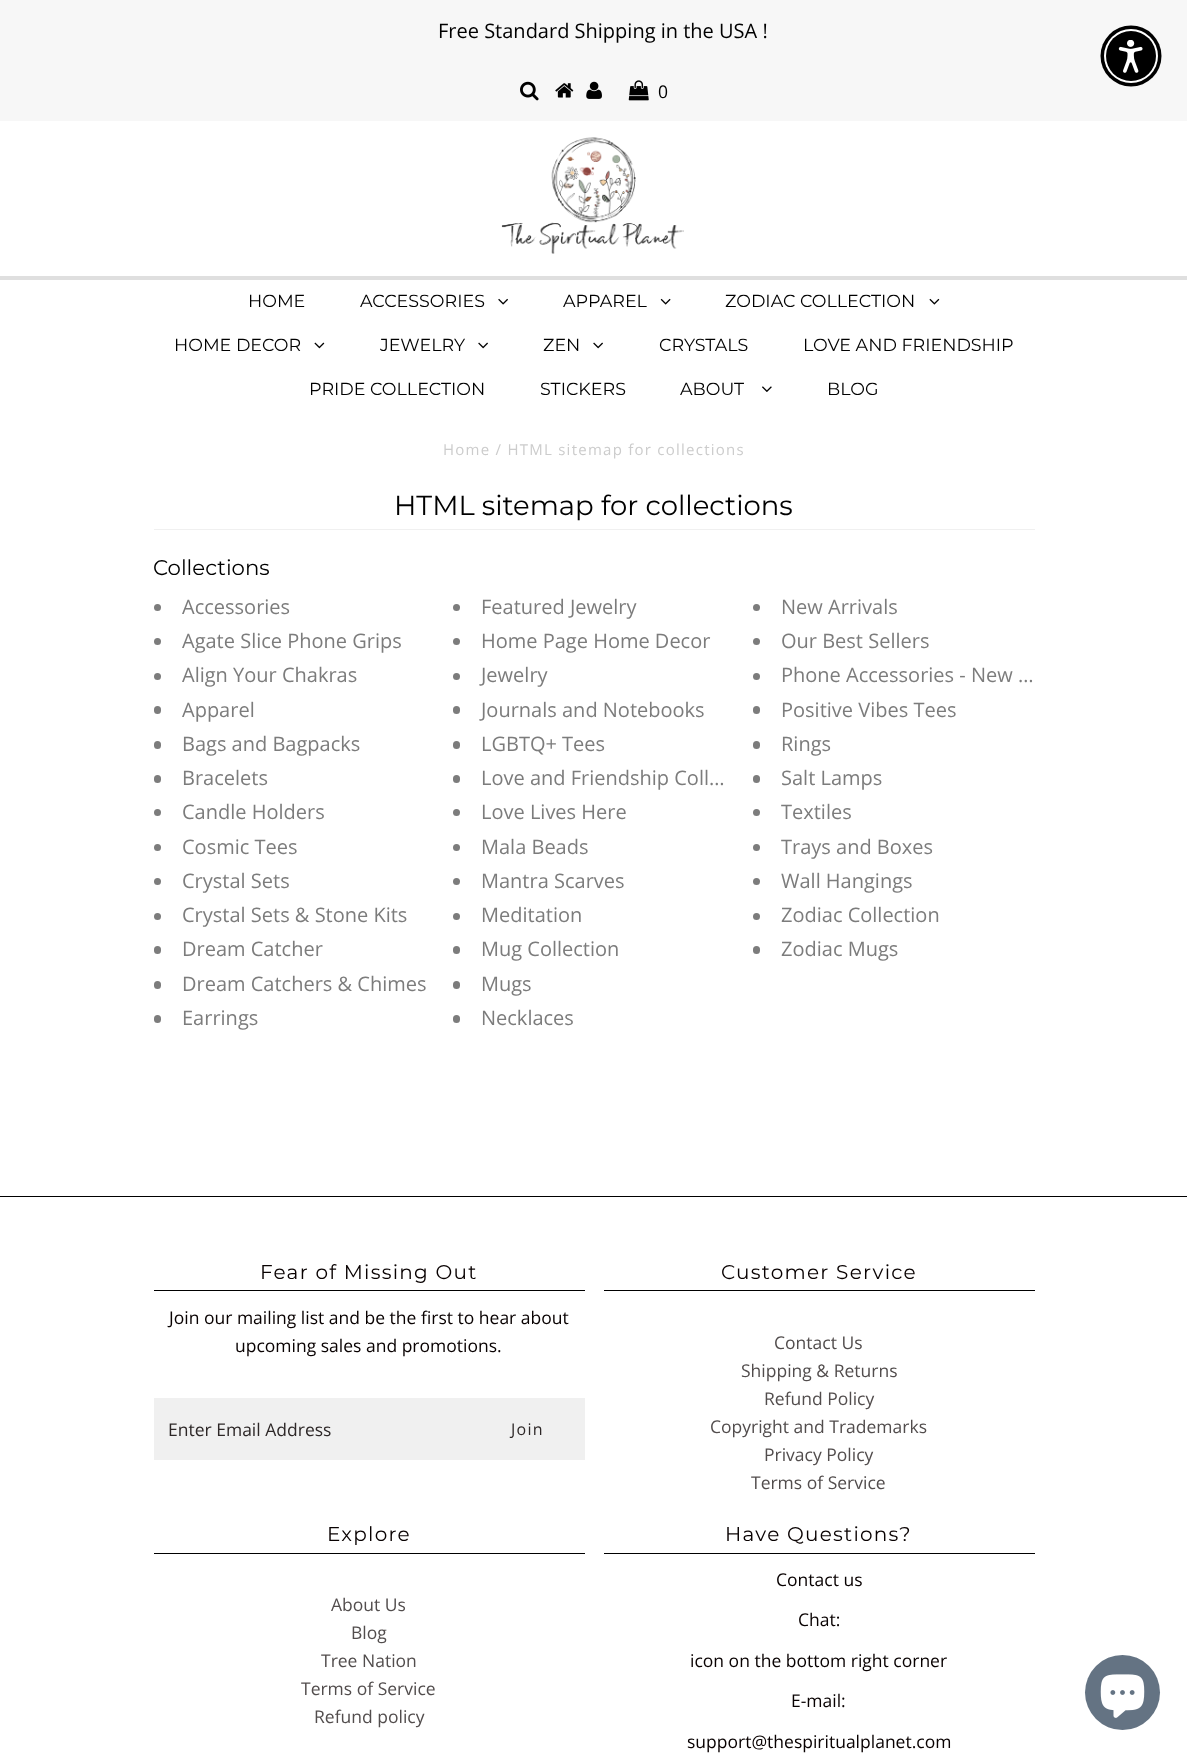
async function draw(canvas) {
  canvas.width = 1187;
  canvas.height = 1756;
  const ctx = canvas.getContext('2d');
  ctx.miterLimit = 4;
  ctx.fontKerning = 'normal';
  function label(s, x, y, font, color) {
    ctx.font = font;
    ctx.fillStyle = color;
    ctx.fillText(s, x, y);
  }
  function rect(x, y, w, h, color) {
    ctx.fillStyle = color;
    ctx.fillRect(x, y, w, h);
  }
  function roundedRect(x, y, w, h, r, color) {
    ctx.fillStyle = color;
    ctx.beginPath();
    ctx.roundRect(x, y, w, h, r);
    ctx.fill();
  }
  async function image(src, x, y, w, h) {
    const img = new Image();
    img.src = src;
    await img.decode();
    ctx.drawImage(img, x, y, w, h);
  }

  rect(0, 0, 1187, 1756, '#fff');
  rect(0, 0, 1187, 121, '#f7f7f7');
  label('Free Standard Shipping in the USA !', 438, 38, '20px Open Sans', '#000');
  await image('assets/img1.png', 520, 81, 19, 20);
  await image('assets/img2.png', 555, 83, 19, 15);
  await image('assets/img3.png', 586, 81, 16, 18);
  await image('assets/img4.png', 628, 80, 21, 21);
  label('0', 658, 98, '17.5px Open Sans', '#000');
  await image('assets/img5.png', 501, 137, 183, 117);
  rect(0, 276, 1187, 4, '#dfdfdf');
  label('HOME', 248, 307, '17.5px Montserrat', '#000');
  label('ACCESSORIES', 360, 307, '17.5px Montserrat', '#000');
  await image('assets/img6.png', 498, 298, 10, 7);
  label('APPAREL', 563, 307, '17.5px Montserrat', '#000');
  await image('assets/img7.png', 660, 298, 11, 7);
  label('ZODIAC COLLECTION', 725, 307, '17.5px Montserrat', '#000');
  await image('assets/img8.png', 929, 298, 11, 7);
  label('HOME DECOR', 174, 351, '17.5px Montserrat', '#000');
  await image('assets/img9.png', 314, 342, 11, 7);
  label('JEWELRY', 380, 351, '17.5px Montserrat', '#000');
  await image('assets/img10.png', 478, 342, 10, 7);
  label('ZEN', 543, 351, '17.5px Montserrat', '#000');
  await image('assets/img10.png', 593, 342, 10, 7);
  label('CRYSTALS', 659, 351, '17.5px Montserrat', '#000');
  label('LOVE AND FRIENDSHIP', 803, 351, '17.5px Montserrat', '#000');
  label('PRIDE COLLECTION', 309, 395, '17.5px Montserrat', '#000');
  label('STICKERS', 540, 395, '17.5px Montserrat', '#000');
  label('ABOUT', 680, 395, '17.5px Montserrat', '#000');
  await image('assets/img11.png', 762, 386, 10, 6);
  label('BLOG', 827, 395, '17.5px Montserrat', '#000');
  ctx.letterSpacing = '1.25px';
  label('Home / HTML sitemap for collections', 443, 455, '15px Open Sans', '#ccc');
  rect(154, 529, 881, 1, '#f0f0f0');
  ctx.letterSpacing = '0px';
  label('HTML sitemap for collections', 394, 515, '27.5px Montserrat', '#000');
  label('Collections', 153, 575, '21.25px Montserrat', '#000');
  ctx.fillStyle = '#7c7c7c';
  ctx.beginPath();
  ctx.arc(157.5, 607.5, 3.5, 0, 2 * Math.PI);
  ctx.fill();
  label('Accessories', 182, 614, '20px Open Sans', '#7c7c7c');
  ctx.beginPath();
  ctx.arc(456.5, 607.5, 3.5, 0, 2 * Math.PI);
  ctx.fill();
  label('Featured Jewelry', 481, 614, '20px Open Sans', '#7c7c7c');
  ctx.beginPath();
  ctx.arc(756.5, 607.5, 3.5, 0, 2 * Math.PI);
  ctx.fill();
  label('New Arrivals', 781, 614, '20px Open Sans', '#7c7c7c');
  ctx.beginPath();
  ctx.arc(157.5, 641.5, 3.5, 0, 2 * Math.PI);
  ctx.fill();
  label('Agate Slice Phone Grips', 182, 648, '20px Open Sans', '#7c7c7c');
  ctx.beginPath();
  ctx.arc(456.5, 641.5, 3.5, 0, 2 * Math.PI);
  ctx.fill();
  label('Home Page Home Decor', 481, 648, '20px Open Sans', '#7c7c7c');
  ctx.beginPath();
  ctx.arc(756.5, 641.5, 3.5, 0, 2 * Math.PI);
  ctx.fill();
  label('Our Best Sellers', 781, 648, '20px Open Sans', '#7c7c7c');
  ctx.beginPath();
  ctx.arc(157.5, 676.5, 3.5, 0, 2 * Math.PI);
  ctx.fill();
  label('Align Your Chakras', 182, 682, '20px Open Sans', '#7c7c7c');
  ctx.beginPath();
  ctx.arc(456.5, 676.5, 3.5, 0, 2 * Math.PI);
  ctx.fill();
  label('Jewelry', 481, 682, '20px Open Sans', '#7c7c7c');
  ctx.beginPath();
  ctx.arc(756.5, 676.5, 3.5, 0, 2 * Math.PI);
  ctx.fill();
  label('Phone Accessories - New …', 781, 682, '20px Open Sans', '#7c7c7c');
  roundedRect(154, 706, 7, 8, 3.5, '#7c7c7c');
  label('Apparel', 182, 717, '20px Open Sans', '#7c7c7c');
  roundedRect(453, 706, 7, 8, 3.5, '#7c7c7c');
  label('Journals and Notebooks', 481, 717, '20px Open Sans', '#7c7c7c');
  roundedRect(753, 706, 7, 8, 3.5, '#7c7c7c');
  label('Positive Vibes Tees', 781, 717, '20px Open Sans', '#7c7c7c');
  roundedRect(154, 741, 7, 8, 3.5, '#7c7c7c');
  label('Bags and Bagpacks', 182, 751, '20px Open Sans', '#7c7c7c');
  roundedRect(453, 741, 7, 8, 3.5, '#7c7c7c');
  label('LGBTQ+ Tees', 481, 751, '20px Open Sans', '#7c7c7c');
  roundedRect(753, 741, 7, 8, 3.5, '#7c7c7c');
  label('Rings', 781, 751, '20px Open Sans', '#7c7c7c');
  roundedRect(154, 775, 7, 8, 3.5, '#7c7c7c');
  label('Bracelets', 182, 785, '20px Open Sans', '#7c7c7c');
  roundedRect(453, 775, 7, 8, 3.5, '#7c7c7c');
  label('Love and Friendship Coll…', 481, 785, '20px Open Sans', '#7c7c7c');
  roundedRect(753, 775, 7, 8, 3.5, '#7c7c7c');
  label('Salt Lamps', 781, 785, '20px Open Sans', '#7c7c7c');
  ctx.beginPath();
  ctx.arc(157.5, 812.5, 3.5, 0, 2 * Math.PI);
  ctx.fill();
  label('Candle Holders', 182, 819, '20px Open Sans', '#7c7c7c');
  ctx.beginPath();
  ctx.arc(456.5, 812.5, 3.5, 0, 2 * Math.PI);
  ctx.fill();
  label('Love Lives Here', 481, 819, '20px Open Sans', '#7c7c7c');
  ctx.beginPath();
  ctx.arc(756.5, 812.5, 3.5, 0, 2 * Math.PI);
  ctx.fill();
  label('Textiles', 781, 819, '20px Open Sans', '#7c7c7c');
  ctx.beginPath();
  ctx.arc(157.5, 847.5, 3.5, 0, 2 * Math.PI);
  ctx.fill();
  label('Cosmic Tees', 182, 854, '20px Open Sans', '#7c7c7c');
  ctx.beginPath();
  ctx.arc(456.5, 847.5, 3.5, 0, 2 * Math.PI);
  ctx.fill();
  label('Mala Beads', 481, 854, '20px Open Sans', '#7c7c7c');
  ctx.beginPath();
  ctx.arc(756.5, 847.5, 3.5, 0, 2 * Math.PI);
  ctx.fill();
  label('Trays and Boxes', 781, 854, '20px Open Sans', '#7c7c7c');
  ctx.beginPath();
  ctx.arc(157.5, 881.5, 3.5, 0, 2 * Math.PI);
  ctx.fill();
  label('Crystal Sets', 182, 888, '20px Open Sans', '#7c7c7c');
  ctx.beginPath();
  ctx.arc(456.5, 881.5, 3.5, 0, 2 * Math.PI);
  ctx.fill();
  label('Mantra Scarves', 481, 888, '20px Open Sans', '#7c7c7c');
  ctx.beginPath();
  ctx.arc(756.5, 881.5, 3.5, 0, 2 * Math.PI);
  ctx.fill();
  label('Wall Hangings', 781, 888, '20px Open Sans', '#7c7c7c');
  ctx.beginPath();
  ctx.arc(157.5, 916.5, 3.5, 0, 2 * Math.PI);
  ctx.fill();
  label('Crystal Sets & Stone Kits', 182, 922, '20px Open Sans', '#7c7c7c');
  ctx.beginPath();
  ctx.arc(456.5, 916.5, 3.5, 0, 2 * Math.PI);
  ctx.fill();
  label('Meditation', 481, 922, '20px Open Sans', '#7c7c7c');
  ctx.beginPath();
  ctx.arc(756.5, 916.5, 3.5, 0, 2 * Math.PI);
  ctx.fill();
  label('Zodiac Collection', 781, 922, '20px Open Sans', '#7c7c7c');
  roundedRect(154, 946, 7, 8, 3.5, '#7c7c7c');
  label('Dream Catcher', 182, 956, '20px Open Sans', '#7c7c7c');
  roundedRect(453, 946, 7, 8, 3.5, '#7c7c7c');
  label('Mug Collection', 481, 956, '20px Open Sans', '#7c7c7c');
  roundedRect(753, 946, 7, 8, 3.5, '#7c7c7c');
  label('Zodiac Mugs', 781, 956, '20px Open Sans', '#7c7c7c');
  roundedRect(154, 981, 7, 8, 3.5, '#7c7c7c');
  label('Dream Catchers & Chimes', 182, 991, '20px Open Sans', '#7c7c7c');
  roundedRect(453, 981, 7, 8, 3.5, '#7c7c7c');
  label('Mugs', 481, 991, '20px Open Sans', '#7c7c7c');
  roundedRect(154, 1015, 7, 8, 3.5, '#7c7c7c');
  label('Earrings', 182, 1025, '20px Open Sans', '#7c7c7c');
  roundedRect(453, 1015, 7, 8, 3.5, '#7c7c7c');
  label('Necklaces', 481, 1025, '20px Open Sans', '#7c7c7c');
  rect(0, 1196, 1187, 1, '#000');
  rect(154, 1290, 431, 1, '#000');
  ctx.letterSpacing = '1.25px';
  label('Fear of Missing Out', 260, 1279, '20px Montserrat', '#080101');
  ctx.letterSpacing = '0px';
  label('Join our mailing list and be the first to hear about', 169, 1324, '17.5px Open Sans', '#080101');
  label('upcoming sales and promotions.', 235, 1352, '17.5px Open Sans', '#080101');
  rect(154, 1398, 431, 62, '#f0f0f0');
  label('Enter Email Address', 168, 1436, '17.5px Open Sans', '#2d2727');
  ctx.letterSpacing = '1.25px';
  label('Join', 511, 1435, '16px Open Sans', '#2d2727');
  rect(604, 1290, 431, 1, '#000');
  label('Customer Service', 721, 1279, '20px Montserrat', '#080101');
  ctx.letterSpacing = '0px';
  label('Contact Us', 774, 1349, '17.5px Open Sans', '#524d4d');
  label('Shipping & Returns', 741, 1377, '17.5px Open Sans', '#524d4d');
  label('Refund Policy', 764, 1405, '17.5px Open Sans', '#524d4d');
  label('Copyright and Trademarks', 710, 1433, '17.5px Open Sans', '#524d4d');
  label('Privacy Policy', 764, 1461, '17.5px Open Sans', '#524d4d');
  label('Terms of Service', 751, 1489, '17.5px Open Sans', '#524d4d');
  rect(154, 1553, 431, 1, '#000');
  ctx.letterSpacing = '1.25px';
  label('Explore', 327, 1541, '20px Montserrat', '#080101');
  ctx.letterSpacing = '0px';
  label('About Us', 331, 1611, '17.5px Open Sans', '#524d4d');
  label('Blog', 351, 1639, '17.5px Open Sans', '#524d4d');
  label('Tree Nation', 321, 1667, '17.5px Open Sans', '#524d4d');
  label('Terms of Service', 301, 1695, '17.5px Open Sans', '#524d4d');
  label('Refund policy', 314, 1723, '17.5px Open Sans', '#524d4d');
  rect(604, 1553, 431, 1, '#000');
  ctx.letterSpacing = '1.25px';
  label('Have Questions?', 725, 1541, '20px Montserrat', '#080101');
  ctx.letterSpacing = '0px';
  label('Contact us', 776, 1586, '17.5px Open Sans', '#080101');
  label('Chat:', 798, 1626, '17.5px Open Sans', '#080101');
  label('icon on the bottom right corner', 690, 1667, '17.5px Open Sans', '#080101');
  label('E-mail:', 791, 1707, '17.5px Open Sans', '#080101');
  label('support@thespiritualplanet.com', 687, 1748, '17.5px Open Sans', '#080101');
  ctx.fillStyle = '#000';
  ctx.beginPath();
  ctx.arc(1131, 56, 30.5, 0, 2 * Math.PI);
  ctx.fill();
  ctx.fillStyle = '#fff';
  ctx.beginPath();
  ctx.arc(1131, 56, 27, 0, 2 * Math.PI);
  ctx.fill();
  ctx.fillStyle = '#000';
  ctx.beginPath();
  ctx.arc(1131, 56, 25, 0, 2 * Math.PI);
  ctx.fill();
  await image('assets/img12.png', 1118, 40, 25, 33);
  ctx.fillStyle = '#647383';
  ctx.beginPath();
  ctx.arc(1122.5, 1692.5, 37.5, 0, 2 * Math.PI);
  ctx.fill();
  await image('assets/img13.png', 1100, 1674, 45, 44);
}

draw(document.querySelector('canvas'));
